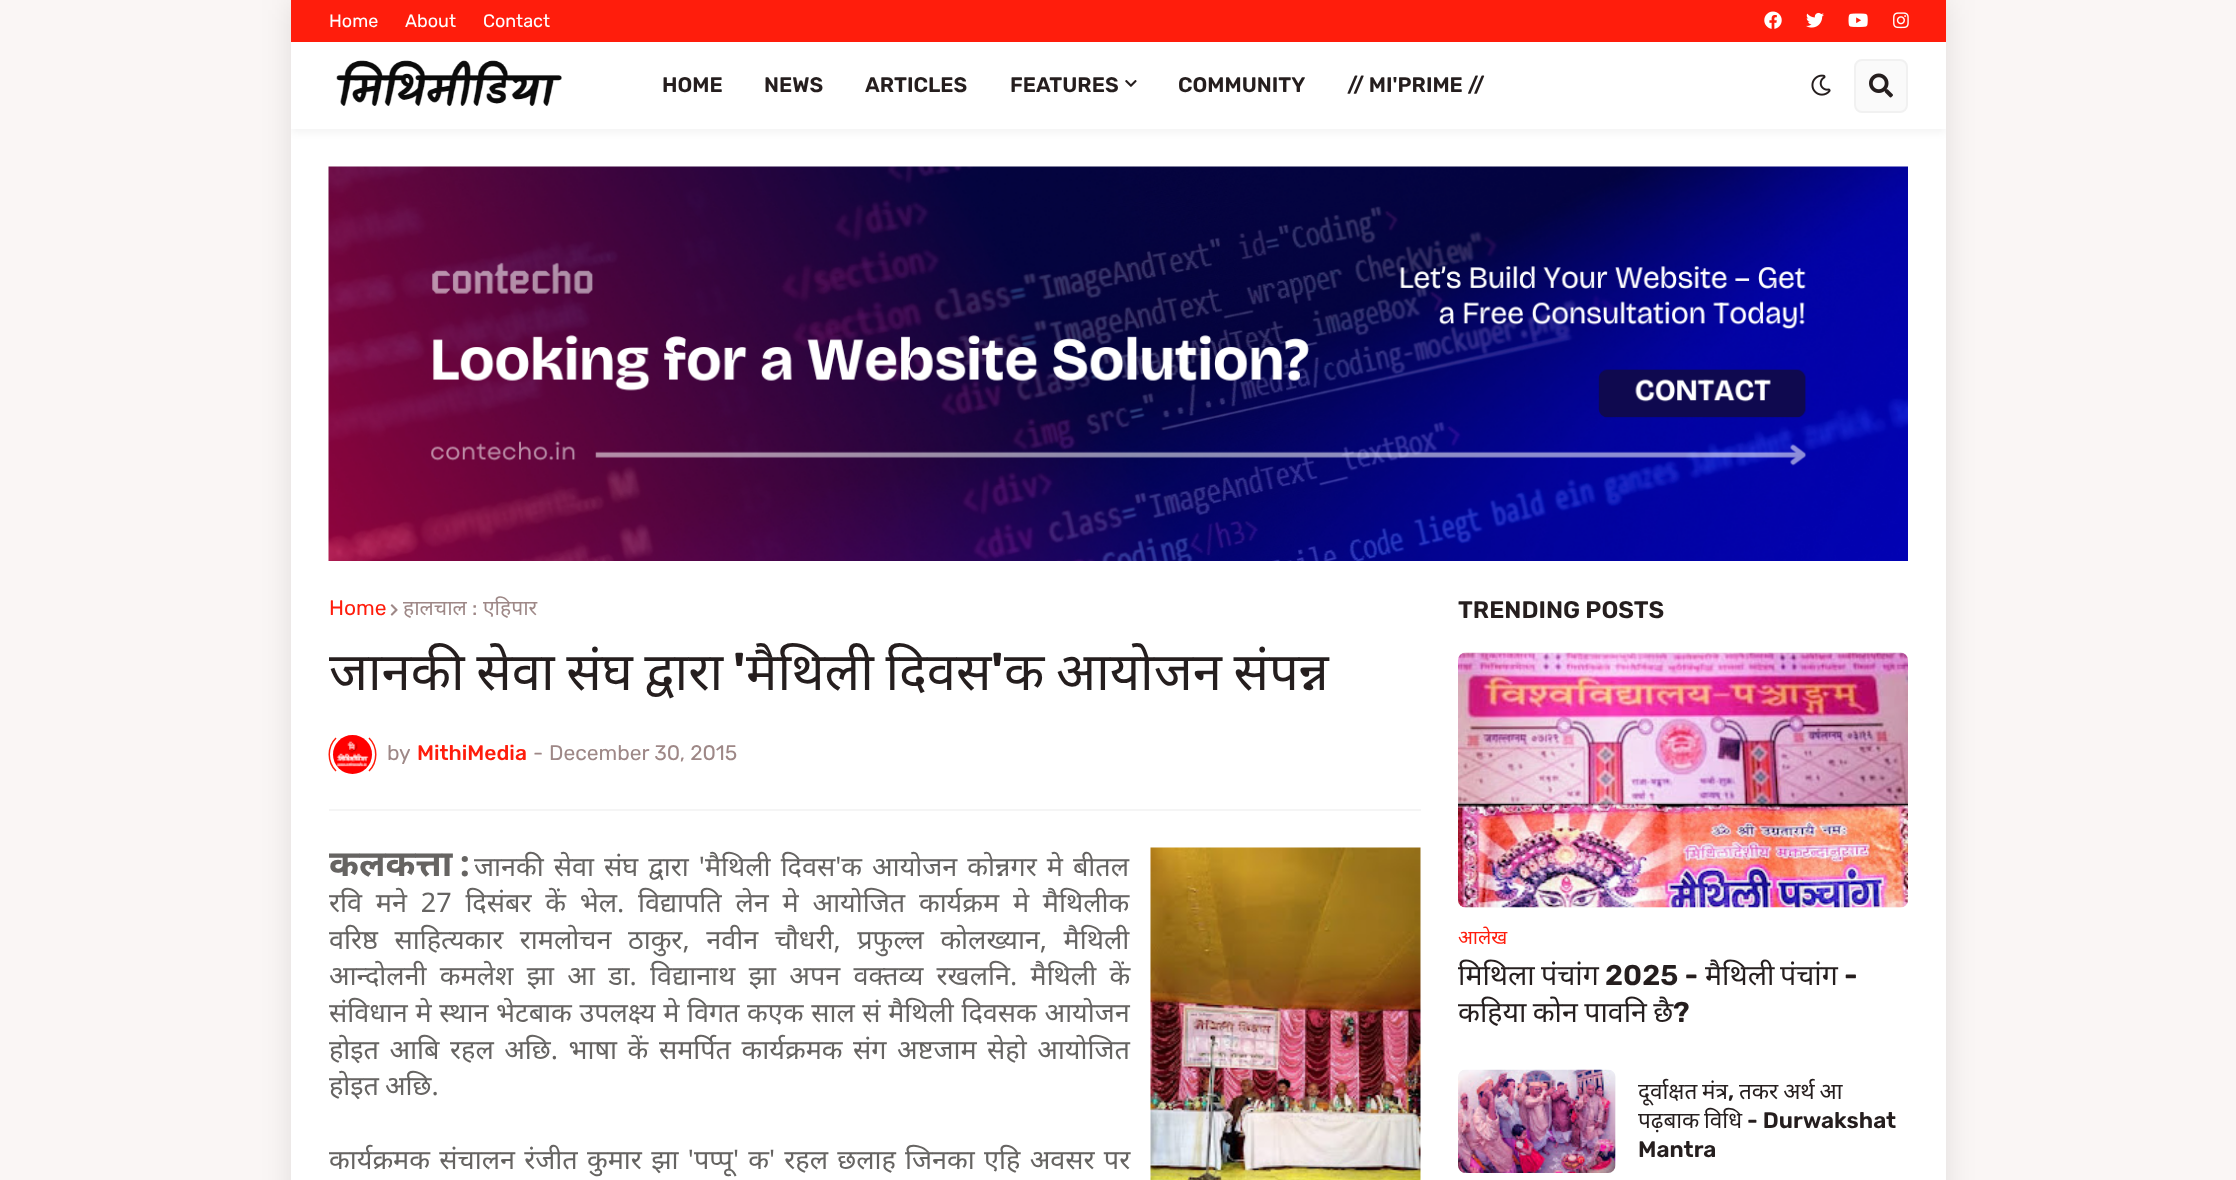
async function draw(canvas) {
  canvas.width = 2236;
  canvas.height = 1180;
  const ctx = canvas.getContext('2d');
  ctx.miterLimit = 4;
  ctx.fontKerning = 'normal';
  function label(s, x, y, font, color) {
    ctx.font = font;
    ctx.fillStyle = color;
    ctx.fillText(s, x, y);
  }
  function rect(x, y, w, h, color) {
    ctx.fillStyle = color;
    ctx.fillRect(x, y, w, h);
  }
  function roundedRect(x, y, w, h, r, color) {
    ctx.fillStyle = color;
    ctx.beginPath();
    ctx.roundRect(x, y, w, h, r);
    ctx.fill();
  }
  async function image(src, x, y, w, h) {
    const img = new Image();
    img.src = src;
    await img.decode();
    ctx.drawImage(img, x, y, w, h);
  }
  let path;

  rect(0, 0, 2236, 1180, '#faf6f5');
  ctx.fillStyle = '#0000001a';
  ctx.filter = 'blur(15px)';
  ctx.beginPath();
  ctx.rect(291, 0, 1655, 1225);
  ctx.fill();
  ctx.filter = 'none';
  rect(291, 129, 1655, 1051, '#fff');
  ctx.save();
  ctx.beginPath();
  ctx.rect(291, 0, 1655, 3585);
  ctx.clip();
  ctx.fillStyle = '#0000000d';
  ctx.filter = 'blur(4.5px)';
  ctx.beginPath();
  ctx.rect(291, 45, 1655, 87);
  ctx.fill();
  ctx.filter = 'none';
  ctx.restore();
  rect(291, 0, 1655, 42, '#ff1d0c');
  label('Home', 329, 27, '18px Rubik', '#fff');
  label('About', 405, 27, '18px Rubik', '#fff');
  label('Contact', 483, 27, '18px Rubik', '#fff');
  await image('assets/img1.png', 1764, 11, 18, 18);
  await image('assets/img2.png', 1806, 12, 18, 16);
  await image('assets/img3.png', 1848, 13, 20, 14);
  await image('assets/img4.png', 1893, 12, 16, 17);
  rect(291, 42, 1655, 87, '#fff');
  await image('assets/img5.png', 336, 60, 226, 46);
  label('HOME', 662, 92, '600 21px Rubik', '#251e1e');
  label('NEWS', 764, 92, '600 21px Rubik', '#251e1e');
  label('ARTICLES', 865, 92, '600 21px Rubik', '#251e1e');
  label('FEATURES', 1010, 92, '600 21px Rubik', '#251e1e');
  await image('assets/img6.png', 1125, 80, 12, 7);
  label('COMMUNITY', 1178, 92, '600 21px Rubik', '#251e1e');
  label('// MI\'PRIME //', 1347, 92, '600 21px Rubik', '#251e1e');
  await image('assets/img7.png', 1811, 74, 20, 22);
  ctx.fillStyle = '#fafafa';
  ctx.beginPath();
  ctx.roundRect(1855, 60, 52, 52, 7);
  ctx.fill();
  ctx.strokeStyle = '#f1f1f1';
  ctx.lineWidth = 2;
  ctx.stroke();
  await image('assets/img8.png', 1869, 73, 24, 25);
  await image('assets/img9.png', 328, 166, 1580, 395);
  rect(329, 809, 1092, 2, '#f5f5f5');
  label('Home', 329, 615, '21px Rubik', '#ff1d0c');
  await image('assets/img10.png', 390, 604, 8, 12);
  label('हालचाल', 403, 615, '21px Noto Sans', '#9e8887');
  label(':', 472, 615, '21px Rubik', '#9e8887');
  label('एहिपार', 483, 615, '21px Noto Sans', '#9e8887');
  ctx.wordSpacing = '-2px';
  label('जानकी सेवा संघ द्वारा', 329, 690, '52.5px Noto Sans', '#251e1e');
  ctx.wordSpacing = '0px';
  label('\'', 733, 690, '600 52.5px Rubik', '#251e1e');
  ctx.wordSpacing = '-2px';
  label('मैथिली दिवस', 746, 690, '52.5px Noto Sans', '#251e1e');
  label('क आयोजन संपन्न', 1004, 690, '52.5px Noto Sans', '#251e1e');
  ctx.wordSpacing = '0px';
  label('\'', 991, 690, '600 52.5px Rubik', '#251e1e');
  path = new Path2D('M369 738C378 747 378 762 369 771M336 771C327 762 327 747 336 738');
  ctx.strokeStyle = '#ff1d0c';
  ctx.lineWidth = 1.5;
  ctx.stroke(path);
  ctx.fillStyle = '#fafafa';
  ctx.beginPath();
  ctx.arc(352.5, 754.5, 19.5, 0, 2 * Math.PI);
  ctx.fill();
  await image('assets/img11.png', 332, 735, 41, 39);
  label('by', 387, 760, '21px Rubik', '#9e8887');
  label('MithiMedia', 417, 760, '500 21px Rubik', '#ff1d0c');
  label('-', 533, 760, '21px Rubik', '#9e8887');
  label('December 30, 2015', 549, 760, '21px Rubik', '#9e8887');
  ctx.wordSpacing = '-2px';
  label('कलकत्ता :', 329, 876, 'bold 36px Noto Sans', '#666462');
  ctx.wordSpacing = '3px';
  label('जानकी सेवा संघ द्वारा \'मैथिली दिवस\'क आयोजन कोन्नगर मे बीतल', 474, 876, '27px Noto Sans', '#666462');
  await image('assets/img12.png', 1150, 847, 271, 333);
  ctx.wordSpacing = '6.75px';
  label('रवि मने 27 दिसंबर कें भेल. विद्यापति लेन मे आयोजित कार्यक्रम मे मैथिलीक', 329, 912, '27px Noto Sans', '#666462');
  ctx.wordSpacing = '9.5px';
  label('वरिष्ठ साहित्यकार रामलोचन ठाकुर, नवीन चौधरी, प्रफुल्ल कोलख्यान, मैथिली', 329, 949, '27px Noto Sans', '#666462');
  ctx.wordSpacing = '6.25px';
  label('आन्दोलनी कमलेश झा आ डा. विद्यानाथ झा अपन वक्तव्य रखलनि. मैथिली कें', 329, 985, '27px Noto Sans', '#666462');
  ctx.wordSpacing = '0.6px';
  label('संविधान मे स्थान भेटबाक उपलक्ष्य मे विगत कएक साल सं मैथिली दिवसक आयोजन', 329, 1022, '27px Noto Sans', '#666462');
  ctx.wordSpacing = '3.5px';
  label('होइत आबि रहल अछि. भाषा कें समर्पित कार्यक्रमक संग अष्टजाम सेहो आयोजित', 329, 1059, '27px Noto Sans', '#666462');
  ctx.wordSpacing = '-1px';
  label('होइत अछि.', 329, 1095, '27px Noto Sans', '#666462');
  ctx.wordSpacing = '2.25px';
  label('कार्यक्रमक संचालन रंजीत कुमार झा \'पप्पू\' क\' रहल छलाह जिनका एहि अवसर पर', 329, 1169, '27px Noto Sans', '#666462');
  ctx.wordSpacing = '0px';
  label('TRENDING POSTS', 1458, 618, '600 24px Rubik', '#251e1e');
  roundedRect(1458, 653, 450, 255, 8, '#fafafa');
  await image('assets/img13.png', 1458, 652, 450, 256);
  label('आलेख', 1458, 944, '19.5px Noto Sans', '#ff1d0c');
  label('मिथिला', 1458, 985, '28.5px Noto Sans', '#251e1e');
  label('पंचांग', 1541, 985, '28.5px Noto Sans', '#251e1e');
  label('2025 -', 1605, 985, '600 28.5px Rubik', '#251e1e');
  label('मैथिली', 1705, 985, '28.5px Noto Sans', '#251e1e');
  label('पंचांग', 1780, 985, '28.5px Noto Sans', '#251e1e');
  label('-', 1844, 985, '600 28.5px Rubik', '#251e1e');
  ctx.wordSpacing = '-1px';
  label('कहिया कोन पावनि छै', 1458, 1022, '28.5px Noto Sans', '#251e1e');
  ctx.wordSpacing = '0px';
  label('?', 1673, 1022, '600 28.5px Rubik', '#251e1e');
  roundedRect(1458, 1070, 158, 103, 8, '#fafafa');
  await image('assets/img14.png', 1458, 1069, 158, 104);
  ctx.wordSpacing = '-1px';
  label('दूर्वाक्षत मंत्र', 1638, 1099, '22.5px Noto Sans', '#251e1e');
  ctx.wordSpacing = '0px';
  label(',', 1728, 1099, '600 22.5px Rubik', '#251e1e');
  ctx.wordSpacing = '-1px';
  label('तकर अर्थ आ', 1739, 1099, '22.5px Noto Sans', '#251e1e');
  ctx.wordSpacing = '0px';
  label('पढ़बाक', 1638, 1128, '22.5px Noto Sans', '#251e1e');
  label('विधि', 1704, 1128, '22.5px Noto Sans', '#251e1e');
  label('- Durwakshat', 1747, 1128, '600 22.5px Rubik', '#251e1e');
  label('Mantra', 1638, 1157, '600 22.5px Rubik', '#251e1e');
}

draw(document.querySelector('canvas'));
